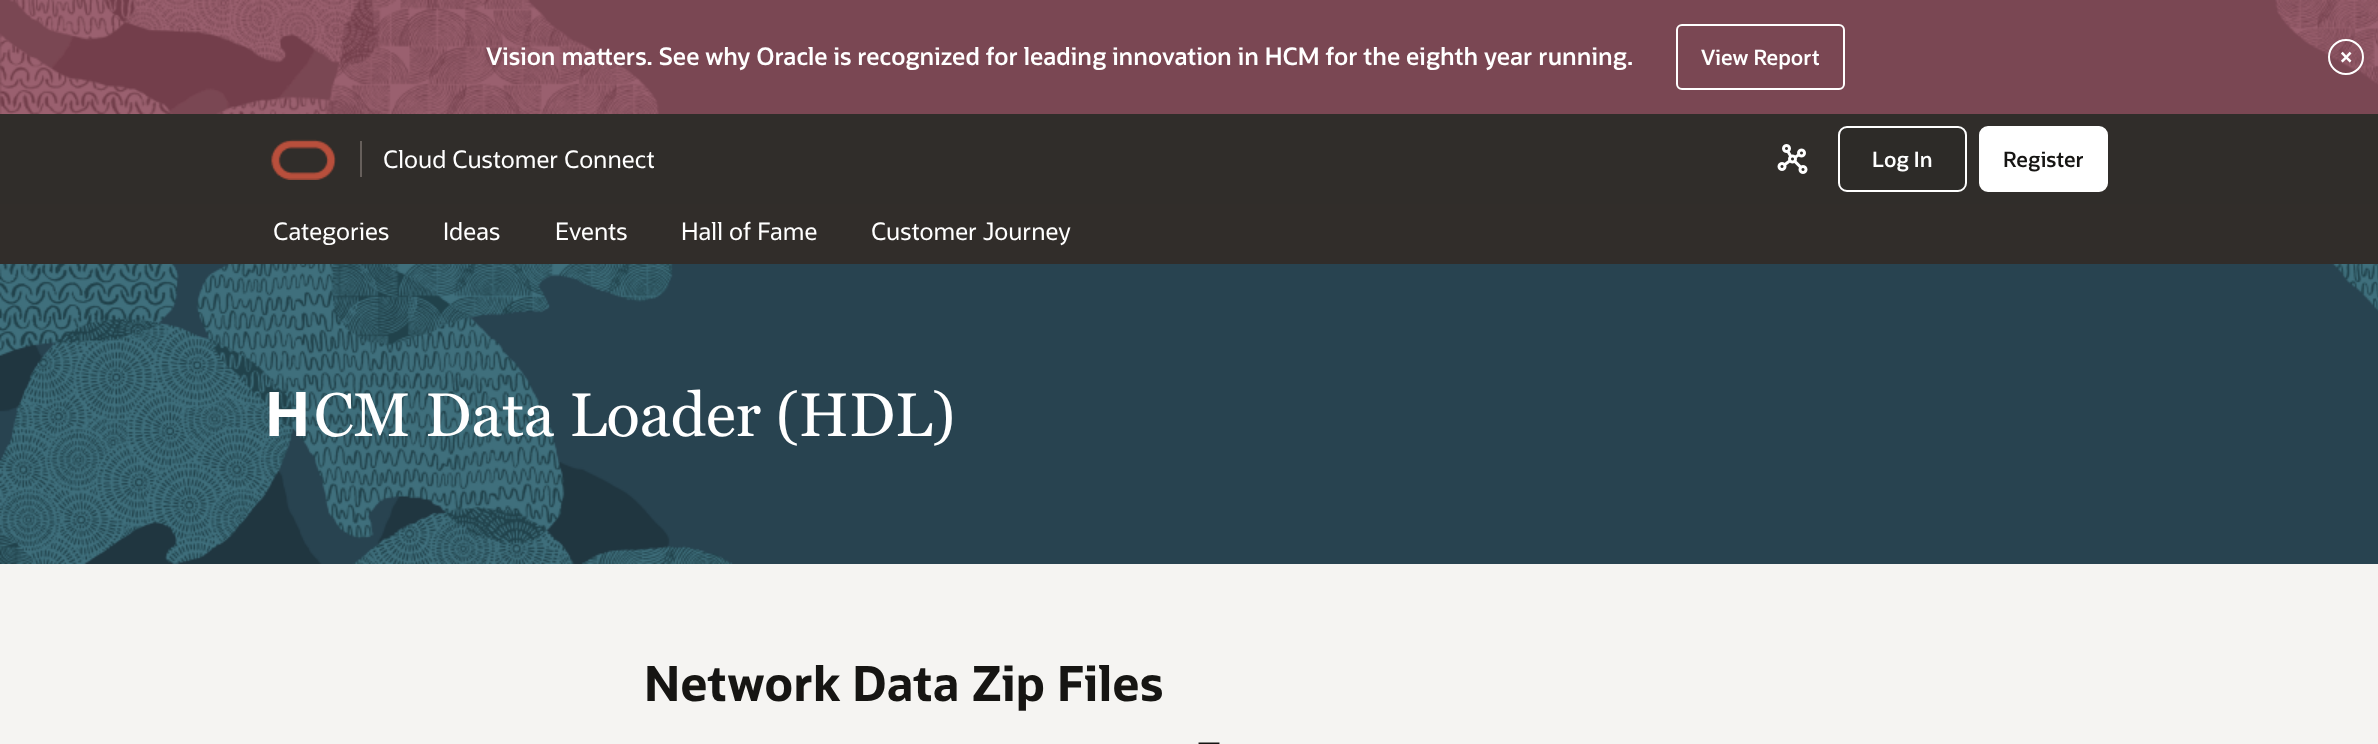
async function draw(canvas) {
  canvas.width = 2378;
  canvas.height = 744;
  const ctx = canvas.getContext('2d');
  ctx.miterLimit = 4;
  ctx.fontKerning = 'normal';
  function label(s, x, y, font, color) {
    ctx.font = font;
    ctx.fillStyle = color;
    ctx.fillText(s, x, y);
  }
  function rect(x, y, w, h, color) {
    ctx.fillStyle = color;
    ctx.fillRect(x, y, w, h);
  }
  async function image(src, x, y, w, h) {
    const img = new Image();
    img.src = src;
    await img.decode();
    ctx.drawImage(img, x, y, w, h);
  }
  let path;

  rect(0, 0, 2378, 744, '#f5f4f2');
  await image('assets/img1.png', 0, 0, 2378, 114);
  label('Vision matters. See why Oracle is recognized for leading innovation in HCM for the eighth year running.', 486, 65, '600 24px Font', '#fff');
  ctx.beginPath();
  ctx.roundRect(1677, 25, 167, 64, 5);
  ctx.strokeStyle = '#fff';
  ctx.lineWidth = 2;
  ctx.stroke();
  label('View Report', 1701, 65, '600 21px Font', '#fff');
  ctx.beginPath();
  ctx.arc(2346, 57, 17, 0, 2 * Math.PI);
  ctx.stroke();
  label('×', 2339, 66, '600 24px Font', '#fff');
  rect(0, 114, 2378, 90, '#302d2a');
  await image('assets/img2.png', 271, 139, 65, 41);
  rect(360, 141, 2, 36, '#665f5b');
  label('Cloud Customer Connect', 383, 168, '24px Font', '#fff');
  await image('assets/img3.png', 1777, 144, 31, 30);
  ctx.fillStyle = '#2d2b28';
  ctx.beginPath();
  ctx.roundRect(1839, 127, 127, 64, 8);
  ctx.fill();
  ctx.stroke();
  label('Log In', 1872, 167, '600 21px Font', '#fff');
  ctx.beginPath();
  ctx.roundRect(1980, 127, 127, 64, 8);
  ctx.fill();
  ctx.stroke();
  label('Register', 2003, 167, '600 21px Font', '#161513');
  rect(0, 204, 2378, 60, '#312d2a');
  label('Categories', 273, 240, '24px Font', '#fff');
  label('Ideas', 443, 240, '24px Font', '#fff');
  label('Events', 555, 240, '24px Font', '#fff');
  label('Hall of Fame', 681, 240, '24px Font', '#fff');
  label('Customer Journey', 871, 240, '24px Font', '#fff');
  await image('assets/img4.png', 0, 264, 2378, 300);
  label('H', 264, 436, 'bold 61.5px Noto Sans', '#fff');
  label('CM Data Loader (HDL)', 314, 436, '61.5px Georgia', '#fff');
  label('Network Data Zip Files', 644, 701, 'bold 48px Font', '#161513');
  path = new Path2D('M1218.5 743.5H1199.5V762.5H1201.5L1204.5 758.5H1218.5Z');
  ctx.strokeStyle = '#161513';
  ctx.lineWidth = 1.9;
  ctx.stroke(path);
}

draw(document.querySelector('canvas'));
